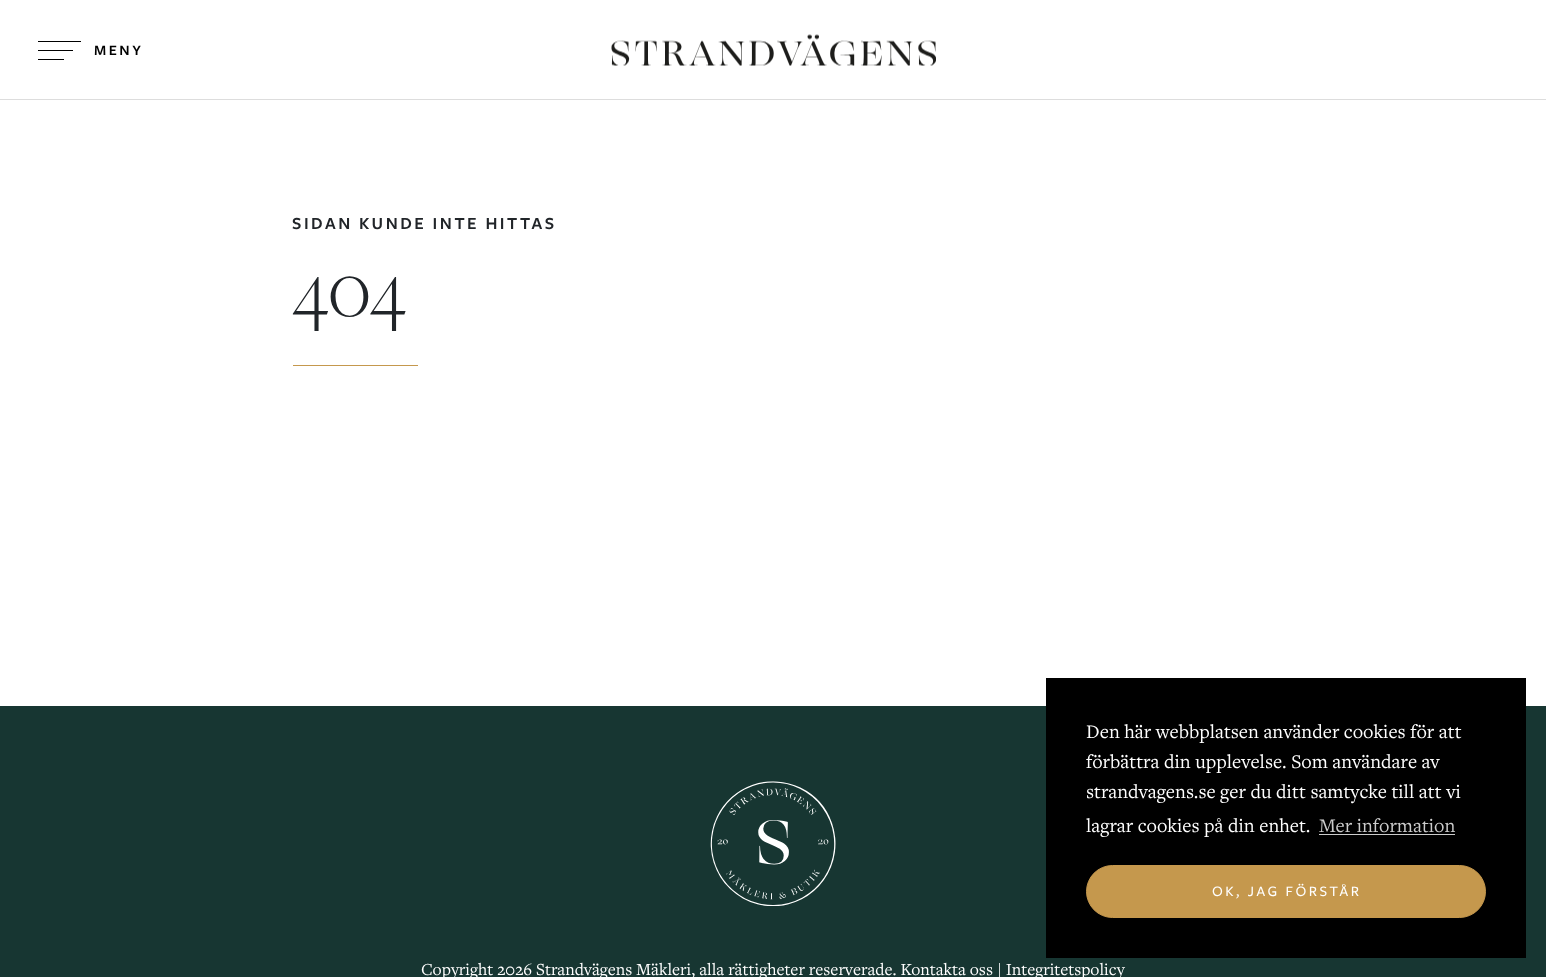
async function draw(canvas) {
  canvas.width = 1546;
  canvas.height = 977;
  const ctx = canvas.getContext('2d');
  ctx.miterLimit = 4;
  ctx.fontKerning = 'normal';
  function label(s, x, y, font, color) {
    ctx.font = font;
    ctx.fillStyle = color;
    ctx.fillText(s, x, y);
  }
  function rect(x, y, w, h, color) {
    ctx.fillStyle = color;
    ctx.fillRect(x, y, w, h);
  }
  async function image(src, x, y, w, h) {
    const img = new Image();
    img.src = src;
    await img.decode();
    ctx.drawImage(img, x, y, w, h);
  }

  rect(0, 0, 1546, 977, '#fff');
  rect(0, 99, 1546, 1, '#ddd');
  rect(38, 41, 43, 1, '#000');
  rect(38, 50, 35, 1, '#000');
  rect(38, 59, 26, 1, '#000');
  ctx.letterSpacing = '2.5px';
  label('MENY', 94, 55, '600 15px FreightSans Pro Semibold', '#000');
  await image('assets/img1.png', 611, 34, 325, 32);
  label('SIDAN KUNDE INTE HITTAS', 292, 229, '600 17.5px FreightSans Pro Semibold', '#212529');
  ctx.letterSpacing = '0px';
  label('404', 292, 316, '300 82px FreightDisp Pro', '#212529');
  rect(293, 365, 125, 1, '#c5984d');
  rect(0, 706, 1546, 271, '#173632');
  rect(1046, 678, 480, 280, '#000');
  label('Den här webbplatsen använder cookies för att', 1086, 738, '20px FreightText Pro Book', '#fff');
  label('förbättra din upplevelse. Som användare av', 1086, 768, '20px FreightText Pro Book', '#fff');
  label('strandvagens.se ger du ditt samtycke till att vi', 1086, 798, '20px FreightText Pro Book', '#fff');
  label('lagrar cookies på din enhet.', 1086, 832, '20px FreightText Pro Book', '#fff');
  label('Mer information', 1319, 832, '20px FreightText Pro Book', '#ccc');
  rect(1319, 834, 136, 1, '#ccc');
  ctx.fillStyle = '#c5984d';
  ctx.beginPath();
  ctx.roundRect(1086.5, 865.5, 399, 52, 26);
  ctx.fill();
  ctx.strokeStyle = '#c5984d';
  ctx.stroke();
  ctx.letterSpacing = '2.5px';
  label('OK, JAG FÖRSTÅR', 1212, 896, '500 15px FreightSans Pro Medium', '#fff');
  await image('assets/img2.png', 710, 781, 126, 125);
  ctx.letterSpacing = '0px';
  label('Copyright 2026 Strandvägens Mäkleri, alla rättigheter reserverade. Kontakta oss | Integritetspolicy', 421, 975, '17.5px FreightText Pro Book', '#fff');
}

draw(document.querySelector('canvas'));
